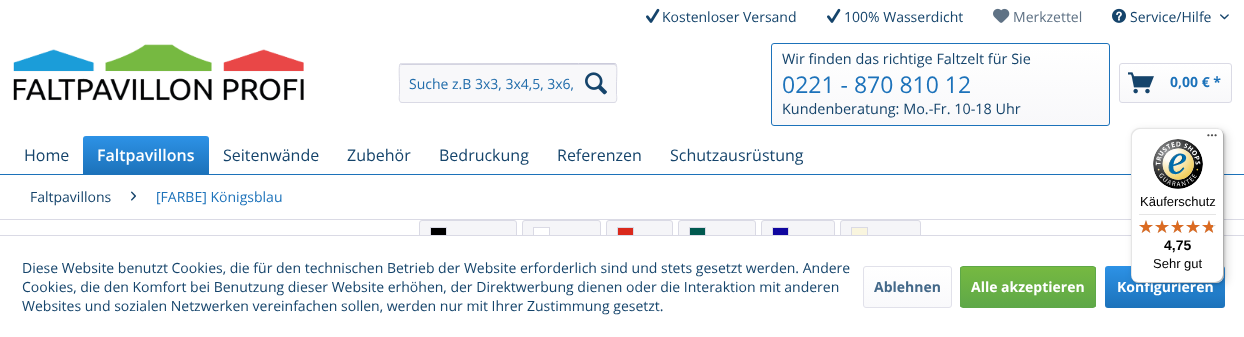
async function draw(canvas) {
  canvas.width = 1244;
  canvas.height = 337;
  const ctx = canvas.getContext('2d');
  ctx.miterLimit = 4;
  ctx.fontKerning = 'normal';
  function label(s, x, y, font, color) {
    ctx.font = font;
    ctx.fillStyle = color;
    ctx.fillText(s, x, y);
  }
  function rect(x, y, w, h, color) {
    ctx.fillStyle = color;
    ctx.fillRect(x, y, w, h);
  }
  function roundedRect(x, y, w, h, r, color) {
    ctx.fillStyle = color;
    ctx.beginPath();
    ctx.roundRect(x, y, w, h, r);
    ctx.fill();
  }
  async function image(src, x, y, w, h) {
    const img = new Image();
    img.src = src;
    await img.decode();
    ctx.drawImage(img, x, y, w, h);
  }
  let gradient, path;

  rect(0, 0, 1244, 337, '#fff');
  await image('assets/img1.png', 646, 8, 14, 15);
  label('Kostenloser Versand', 662, 22, '14px Open Sans', '#15446b');
  await image('assets/img1.png', 827, 8, 14, 15);
  label('100% Wasserdicht', 844, 22, '14px Open Sans', '#15446b');
  await image('assets/img2.png', 993, 8, 17, 15);
  label('Merkzettel', 1013, 22, '14px Open Sans', '#5f7285');
  await image('assets/img3.png', 1112, 8, 14, 15);
  label('Service/Hilfe', 1130, 22, '14px Open Sans', '#15446b');
  await image('assets/img4.png', 1220, 14, 9, 6);
  await image('assets/img5.png', 13, 44, 291, 57);
  roundedRect(399, 63, 218, 40, 3, '#f8f8fa');
  ctx.fillStyle = '#dadae5';
  path = new Path2D('M402 65H614C615 65 616 66 616 67C616 66 616 64 614 64H402L401 65L400 67C400 66 401 65 402 65Z');
  ctx.fill(path);
  path = new Path2D('M400 64H401L578.5 63.5H614L616 64');
  ctx.strokeStyle = '#cbcbdb';
  ctx.stroke(path);
  path = new Path2D('M616 64C617.5 66 616.5 80 616.5 83V94.5C616.5 96 618 102.5 614 102.5H402C398 102.5 399.5 96 399.5 94.5V83C399.5 80 398.5 66 400 64');
  ctx.strokeStyle = '#dadae5';
  ctx.stroke(path);
  label('Suche z.B 3x3, 3x4,5, 3x6,', 409, 89, '14px Open Sans', '#226dab');
  await image('assets/img6.png', 585, 72, 22, 23);
  ctx.save();
  ctx.beginPath();
  ctx.roundRect(771, 43, 339, 83, 3);
  ctx.clip();
  gradient = ctx.createLinearGradient(941, 44, 941, 125);
  gradient.addColorStop(0, '#fff');
  gradient.addColorStop(1, '#f8f8fa');
  ctx.fillStyle = gradient;
  ctx.fillRect(771, 44, 339, 81);
  ctx.restore();
  ctx.beginPath();
  ctx.roundRect(771.5, 43.5, 338, 82, 2.5);
  ctx.strokeStyle = '#1c72ba';
  ctx.stroke();
  label('Wir finden das richtige Faltzelt für Sie', 782, 64, '14.4px Open Sans', '#15446b');
  label('0221 - 870 810 12', 782, 93, '23px Open Sans', '#1c72ba');
  label('Kundenberatung: Mo.-Fr. 10-18 Uhr', 782, 114, '14.4px Open Sans', '#15446b');
  gradient = ctx.createLinearGradient(1176, 64, 1176, 102);
  gradient.addColorStop(0, '#fff');
  gradient.addColorStop(1, '#f8f8fa');
  ctx.fillStyle = gradient;
  ctx.beginPath();
  ctx.roundRect(1120, 64, 111, 38, 2);
  ctx.fill();
  ctx.beginPath();
  ctx.roundRect(1119.5, 63.5, 112, 39, 2.5);
  ctx.strokeStyle = '#dadae5';
  ctx.stroke();
  await image('assets/img7.png', 1128, 72, 26, 22);
  label('0,00 € *', 1170, 87, 'bold 14px Open Sans', '#1c72ba');
  rect(0, 174, 1244, 1, '#1c72ba');
  label('Home', 24, 161, '16px Open Sans', '#15446b');
  gradient = ctx.createLinearGradient(146, 136, 146, 174);
  gradient.addColorStop(0, '#2d92e6');
  gradient.addColorStop(1, '#1c72ba');
  ctx.fillStyle = gradient;
  ctx.beginPath();
  ctx.roundRect(83, 136, 126, 38, [3, 3, 0, 0]);
  ctx.fill();
  label('Faltpavillons', 97, 161, '600 16px Open Sans', '#fff');
  label('Seitenwände', 223, 161, '16px Open Sans', '#15446b');
  label('Zubehör', 347, 161, '16px Open Sans', '#15446b');
  label('Bedruckung', 439, 161, '16px Open Sans', '#15446b');
  label('Referenzen', 557, 161, '16px Open Sans', '#15446b');
  label('Schutzausrüstung', 670, 161, '16px Open Sans', '#15446b');
  rect(0, 219, 1244, 1, '#dadae5');
  label('Faltpavillons', 30, 202, '14px Open Sans', '#15446b');
  await image('assets/img8.png', 131, 191, 5, 10);
  label('[FARBE] Königsblau', 156, 202, '14px Open Sans', '#1c72ba');
  ctx.fillStyle = '#f5f5f8';
  ctx.beginPath();
  ctx.roundRect(419.5, 220.5, 97, 30, 2.5);
  ctx.fill();
  ctx.stroke();
  rect(431, 228, 15, 7, '#000');
  ctx.strokeRect(430.5, 227.5, 16, 16);
  ctx.fillStyle = '#f5f5f8';
  ctx.beginPath();
  ctx.roundRect(522.5, 220.5, 78, 30, 2.5);
  ctx.fill();
  ctx.stroke();
  rect(534, 228, 15, 7, '#fff');
  ctx.strokeRect(533.5, 227.5, 16, 16);
  ctx.fillStyle = '#f5f5f8';
  ctx.beginPath();
  ctx.roundRect(606.5, 220.5, 66, 30, 2.5);
  ctx.fill();
  ctx.stroke();
  rect(618, 228, 15, 7, '#da291c');
  ctx.strokeRect(617.5, 227.5, 16, 16);
  ctx.fillStyle = '#f5f5f8';
  ctx.beginPath();
  ctx.roundRect(678.5, 220.5, 77, 30, 2.5);
  ctx.fill();
  ctx.stroke();
  rect(690, 228, 15, 7, '#00594f');
  ctx.strokeRect(689.5, 227.5, 16, 16);
  ctx.fillStyle = '#f5f5f8';
  ctx.beginPath();
  ctx.roundRect(761.5, 220.5, 73, 30, 2.5);
  ctx.fill();
  ctx.stroke();
  rect(773, 228, 15, 7, '#10069f');
  ctx.strokeRect(772.5, 227.5, 16, 16);
  ctx.fillStyle = '#f5f5f8';
  ctx.beginPath();
  ctx.roundRect(840.5, 220.5, 80, 30, 2.5);
  ctx.fill();
  ctx.stroke();
  rect(852, 228, 15, 7, '#f9f5de');
  ctx.strokeRect(851.5, 227.5, 16, 16);
  rect(0, 235, 1244, 1, '#dadae5');
  gradient = ctx.createLinearGradient(1165, 266, 1165, 308);
  gradient.addColorStop(0, '#2d92e6');
  gradient.addColorStop(1, '#1c72ba');
  ctx.fillStyle = gradient;
  ctx.beginPath();
  ctx.roundRect(1105, 266, 120, 42, 3);
  ctx.fill();
  ctx.fillStyle = '#00000026';
  ctx.filter = 'blur(4px)';
  ctx.beginPath();
  ctx.roundRect(1134, 131, 93, 155, 8);
  ctx.fill();
  ctx.filter = 'none';
  ctx.filter = 'blur(1px)';
  ctx.beginPath();
  ctx.roundRect(1132, 129, 93, 155, 8);
  ctx.fill();
  ctx.filter = 'none';
  roundedRect(1131, 128, 93, 155, 8, '#fff');
  ctx.fillStyle = '#0000001a';
  path = new Path2D('M1140 129H1217C1219 129 1221 130 1223 132C1221 130 1219 128 1216 128H1139C1135 128 1131 132 1131 136V275C1131 278 1133 280 1135 282C1133 280 1132 278 1132 276V137C1132 133 1136 129 1140 129Z');
  ctx.fill(path);
  label('Konfigurieren', 1117, 292, 'bold 14px Open Sans', '#fff');
  ctx.fillStyle = '#00000033';
  path = new Path2D('M1132 279C1134 281 1136 283 1139 283H1216C1220 283 1224 279 1224 275V136C1224 133 1222 131 1220 129C1222 131 1223 133 1223 135V274C1223 278 1219 282 1215 282H1138C1136 282 1134 281 1132 279Z');
  ctx.fill(path);
  ctx.fillStyle = '#32323233';
  path = new Path2D('M1133 280C1134 282 1137 283 1139 283H1216C1220 283 1224 279 1224 275V136C1224 134 1223 131 1221 130C1222 131 1223 133 1223 135V274C1223 279 1220 282 1215 282H1138C1136 282 1134 281 1133 280Z');
  ctx.fill(path);
  await image('assets/img9.png', 1207, 134, 10, 3);
  ctx.fillStyle = '#ffffff4d';
  path = new Path2D('M1133 280C1134 282 1137 283 1139 283H1216C1220 283 1224 279 1224 275V274C1224 279 1220 282 1216 282H1138C1136 282 1134 281 1133 280Z');
  ctx.fill(path);
  await image('assets/img10.png', 1153, 139, 50, 50);
  label('Käuferschutz', 1140, 206, '13px Liberation Sans', '#000');
  rect(1139, 214, 77, 1, '#e5e5e5');
  await image('assets/img11.png', 1139, 220, 14, 13);
  await image('assets/img11.png', 1155, 220, 14, 13);
  await image('assets/img12.png', 1171, 220, 13, 13);
  await image('assets/img11.png', 1186, 220, 14, 13);
  await image('assets/img11.png', 1202, 220, 14, 13);
  await image('assets/img13.png', 1139, 220, 14, 13);
  await image('assets/img13.png', 1155, 220, 14, 13);
  await image('assets/img14.png', 1171, 220, 13, 13);
  await image('assets/img13.png', 1186, 220, 14, 13);
  await image('assets/img15.png', 1202, 220, 11, 13);
  label('4,75', 1164, 250, 'bold 14px Liberation Sans', '#000');
  label('Sehr gut', 1153, 268, '13px Liberation Sans', '#000');
  rect(419, 236, 502, 15, '#fff');
  label('Diese Website benutzt Cookies, die für den technischen Betrieb der Website erforderlich sind und stets gesetzt werden. Andere', 22, 273, '14px Open Sans', '#15446b');
  label('Cookies, die den Komfort bei Benutzung dieser Website erhöhen, der Direktwerbung dienen oder die Interaktion mit anderen', 22, 292, '14px Open Sans', '#15446b');
  label('Websites und sozialen Netzwerken vereinfachen sollen, werden nur mit Ihrer Zustimmung gesetzt.', 22, 311, '14px Open Sans', '#15446b');
  gradient = ctx.createLinearGradient(908, 267, 908, 307);
  gradient.addColorStop(0, '#fff');
  gradient.addColorStop(1, '#f9f9fb');
  ctx.fillStyle = gradient;
  ctx.beginPath();
  ctx.roundRect(864, 267, 87, 40, 2);
  ctx.fill();
  ctx.beginPath();
  ctx.roundRect(863.5, 266.5, 88, 41, 2.5);
  ctx.strokeStyle = '#e1e1ea';
  ctx.stroke();
  label('Ablehnen', 874, 292, 'bold 14px Open Sans', '#446989');
  ctx.save();
  ctx.beginPath();
  ctx.roundRect(960, 266, 136, 42, 3);
  ctx.clip();
  gradient = ctx.createLinearGradient(1028, 267, 1028, 307);
  gradient.addColorStop(0, '#76b941');
  gradient.addColorStop(1, '#5ea848');
  ctx.fillStyle = gradient;
  ctx.fillRect(960, 267, 136, 40);
  ctx.restore();
  ctx.beginPath();
  ctx.roundRect(960.5, 266.5, 135, 41, 2.5);
  ctx.strokeStyle = '#5ea848';
  ctx.stroke();
  label('Alle akzeptieren', 971, 292, 'bold 14px Open Sans', '#fff');
}

draw(document.querySelector('canvas'));
